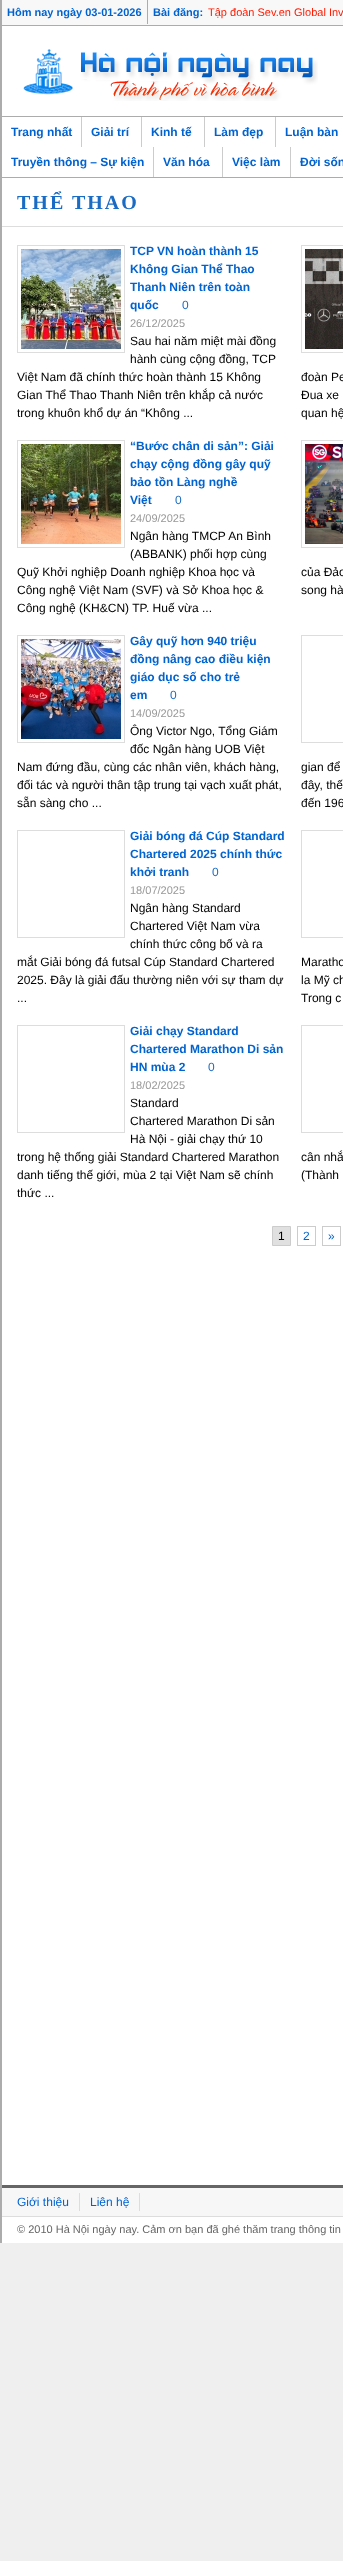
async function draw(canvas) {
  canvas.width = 343;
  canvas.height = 2561;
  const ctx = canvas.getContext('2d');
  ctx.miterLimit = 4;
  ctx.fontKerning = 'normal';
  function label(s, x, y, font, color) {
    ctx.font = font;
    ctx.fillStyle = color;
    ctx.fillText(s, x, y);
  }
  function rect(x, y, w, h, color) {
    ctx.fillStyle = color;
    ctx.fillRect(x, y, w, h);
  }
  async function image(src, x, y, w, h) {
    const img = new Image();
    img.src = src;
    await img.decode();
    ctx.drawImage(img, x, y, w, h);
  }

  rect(0, 0, 343, 2561, '#efefef');
  rect(2, 26, 341, 2217, '#fff');
  rect(0, 0, 2, 2243, '#acacac');
  rect(2, 0, 341, 25, '#f8f8f9');
  rect(2, 25, 341, 1, '#acacac');
  rect(147, 0, 1, 24, '#acacac');
  label('Hôm nay ngày 03-01-2026', 7, 16, 'bold 11px Liberation Sans', '#0063d0');
  label('Bài đăng:', 153, 16, 'bold 11px Liberation Sans', '#0063d0');
  label('Tập đoàn Sev.en Global Inv', 208, 16, '11px Liberation Sans', '#fe1b00');
  await image('assets/img1.png', 23, 49, 295, 52);
  rect(2, 116, 341, 1, '#acacac');
  rect(2, 177, 341, 1, '#acacac');
  rect(81, 117, 1, 30, '#ccc');
  label('Trang nhất', 11, 136, 'bold 12px Liberation Sans', '#0063d0');
  rect(141, 117, 1, 30, '#ccc');
  label('Giải trí', 91, 136, 'bold 12px Liberation Sans', '#0063d0');
  rect(204, 117, 1, 30, '#ccc');
  label('Kinh tế', 151, 136, 'bold 12px Liberation Sans', '#0063d0');
  rect(275, 117, 1, 30, '#ccc');
  label('Làm đẹp', 214, 136, 'bold 12px Liberation Sans', '#0063d0');
  label('Luận bàn', 285, 136, 'bold 12px Liberation Sans', '#0063d0');
  rect(153, 147, 1, 30, '#ccc');
  label('Truyền thông – Sự kiện', 11, 166, 'bold 12px Liberation Sans', '#0063d0');
  rect(222, 147, 1, 30, '#ccc');
  label('Văn hóa', 163, 166, 'bold 12px Liberation Sans', '#0063d0');
  rect(290, 147, 1, 30, '#ccc');
  label('Việc làm', 232, 166, 'bold 12px Liberation Sans', '#0063d0');
  label('Đời sốn', 300, 166, 'bold 12px Liberation Sans', '#0063d0');
  rect(2, 226, 341, 1, '#ddd');
  ctx.letterSpacing = '2px';
  label('THỂ THAO', 17, 209, 'bold 20px Liberation Serif', '#196bc4');
  ctx.strokeStyle = '#ddd';
  ctx.strokeRect(17.5, 245.5, 107, 107);
  await image('assets/img2.png', 21, 249, 100, 100);
  ctx.letterSpacing = '0px';
  label('TCP VN hoàn thành 15', 130, 255, 'bold 12px Liberation Sans', '#0063d0');
  label('Không Gian Thể Thao', 130, 273, 'bold 12px Liberation Sans', '#0063d0');
  label('Thanh Niên trên toàn', 130, 291, 'bold 12px Liberation Sans', '#0063d0');
  label('quốc', 130, 309, 'bold 12px Liberation Sans', '#0063d0');
  label('0', 182, 309, '12px Liberation Sans', '#196bc4');
  label('26/12/2025', 130, 327, '11px Liberation Sans', '#999');
  label('Sau hai năm miệt mài đồng', 130, 345, '12px Liberation Sans', '#000');
  label('hành cùng cộng đồng, TCP', 130, 363, '12px Liberation Sans', '#000');
  label('Việt Nam đã chính thức hoàn thành 15 Không', 17, 381, '12px Liberation Sans', '#000');
  label('Gian Thể Thao Thanh Niên trên khắp cả nước', 17, 399, '12px Liberation Sans', '#000');
  label('trong khuôn khổ dự án “Không ...', 17, 417, '12px Liberation Sans', '#000');
  ctx.strokeRect(301.5, 245.5, 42, 107);
  await image('assets/img3.png', 305, 249, 38, 100);
  label('đoàn Pe', 301, 381, '12px Liberation Sans', '#000');
  label('Đua xe', 301, 399, '12px Liberation Sans', '#000');
  label('quan hệ', 301, 417, '12px Liberation Sans', '#000');
  ctx.strokeRect(17.5, 440.5, 107, 107);
  await image('assets/img4.png', 21, 444, 100, 100);
  label('“Bước chân di sản”: Giải', 130, 450, 'bold 12px Liberation Sans', '#0063d0');
  label('chạy cộng đồng gây quỹ', 130, 468, 'bold 12px Liberation Sans', '#0063d0');
  label('bảo tồn Làng nghề', 130, 486, 'bold 12px Liberation Sans', '#0063d0');
  label('Việt', 130, 504, 'bold 12px Liberation Sans', '#0063d0');
  label('0', 175, 504, '12px Liberation Sans', '#196bc4');
  label('24/09/2025', 130, 522, '11px Liberation Sans', '#999');
  label('Ngân hàng TMCP An Bình', 130, 540, '12px Liberation Sans', '#000');
  label('(ABBANK) phối hợp cùng', 130, 558, '12px Liberation Sans', '#000');
  label('Quỹ Khởi nghiệp Doanh nghiệp Khoa học và', 17, 576, '12px Liberation Sans', '#000');
  label('Công nghệ Việt Nam (SVF) và Sở Khoa học &', 17, 594, '12px Liberation Sans', '#000');
  label('Công nghệ (KH&CN) TP. Huế vừa ...', 17, 612, '12px Liberation Sans', '#000');
  ctx.strokeRect(301.5, 440.5, 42, 107);
  await image('assets/img5.png', 305, 444, 38, 100);
  label('của Đảo', 301, 576, '12px Liberation Sans', '#000');
  label('song hà', 301, 594, '12px Liberation Sans', '#000');
  ctx.strokeRect(17.5, 635.5, 107, 107);
  await image('assets/img6.png', 21, 639, 100, 100);
  label('Gây quỹ hơn 940 triệu', 130, 645, 'bold 12px Liberation Sans', '#0063d0');
  label('đồng nâng cao điều kiện', 130, 663, 'bold 12px Liberation Sans', '#0063d0');
  label('giáo dục số cho trẻ', 130, 681, 'bold 12px Liberation Sans', '#0063d0');
  label('em', 130, 699, 'bold 12px Liberation Sans', '#0063d0');
  label('0', 170, 699, '12px Liberation Sans', '#196bc4');
  label('14/09/2025', 130, 717, '11px Liberation Sans', '#999');
  label('Ông Victor Ngo, Tổng Giám', 130, 735, '12px Liberation Sans', '#000');
  label('đốc Ngân hàng UOB Việt', 130, 753, '12px Liberation Sans', '#000');
  label('Nam đứng đầu, cùng các nhân viên, khách hàng,', 17, 771, '12px Liberation Sans', '#000');
  label('đối tác và người thân tập trung tại vạch xuất phát,', 17, 789, '12px Liberation Sans', '#000');
  label('sẵn sàng cho ...', 17, 807, '12px Liberation Sans', '#000');
  ctx.strokeRect(301.5, 635.5, 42, 107);
  label('gian để', 301, 771, '12px Liberation Sans', '#000');
  label('đây, thế', 301, 789, '12px Liberation Sans', '#000');
  label('đến 196', 301, 807, '12px Liberation Sans', '#000');
  ctx.strokeRect(17.5, 830.5, 107, 107);
  label('Giải bóng đá Cúp Standard', 130, 840, 'bold 12px Liberation Sans', '#0063d0');
  label('Chartered 2025 chính thức', 130, 858, 'bold 12px Liberation Sans', '#0063d0');
  label('khởi tranh', 130, 876, 'bold 12px Liberation Sans', '#0063d0');
  label('0', 212, 876, '12px Liberation Sans', '#196bc4');
  label('18/07/2025', 130, 894, '11px Liberation Sans', '#999');
  label('Ngân hàng Standard', 130, 912, '12px Liberation Sans', '#000');
  label('Chartered Việt Nam vừa', 130, 930, '12px Liberation Sans', '#000');
  label('chính thức công bố và ra', 130, 948, '12px Liberation Sans', '#000');
  label('mắt Giải bóng đá futsal Cúp Standard Chartered', 17, 966, '12px Liberation Sans', '#000');
  label('2025. Đây là giải đấu thường niên với sự tham dự', 17, 984, '12px Liberation Sans', '#000');
  label('...', 17, 1002, '12px Liberation Sans', '#000');
  ctx.strokeRect(301.5, 830.5, 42, 107);
  label('Maratho', 301, 966, '12px Liberation Sans', '#000');
  label('la Mỹ ch', 301, 984, '12px Liberation Sans', '#000');
  label('Trong c', 301, 1002, '12px Liberation Sans', '#000');
  ctx.strokeRect(17.5, 1025.5, 107, 107);
  label('Giải chạy Standard', 130, 1035, 'bold 12px Liberation Sans', '#0063d0');
  label('Chartered Marathon Di sản', 130, 1053, 'bold 12px Liberation Sans', '#0063d0');
  label('HN mùa 2', 130, 1071, 'bold 12px Liberation Sans', '#0063d0');
  label('0', 208, 1071, '12px Liberation Sans', '#196bc4');
  label('18/02/2025', 130, 1089, '11px Liberation Sans', '#999');
  label('Standard', 130, 1107, '12px Liberation Sans', '#000');
  label('Chartered Marathon Di sản', 130, 1125, '12px Liberation Sans', '#000');
  label('Hà Nội - giải chạy thứ 10', 130, 1143, '12px Liberation Sans', '#000');
  label('trong hệ thống giải Standard Chartered Marathon', 17, 1161, '12px Liberation Sans', '#000');
  label('danh tiếng thế giới, mùa 2 tại Việt Nam sẽ chính', 17, 1179, '12px Liberation Sans', '#000');
  label('thức ...', 17, 1197, '12px Liberation Sans', '#000');
  ctx.strokeRect(301.5, 1025.5, 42, 107);
  label('cân nhắ', 301, 1161, '12px Liberation Sans', '#000');
  label('(Thành', 301, 1179, '12px Liberation Sans', '#000');
  ctx.fillStyle = '#e0e0e0';
  ctx.beginPath();
  ctx.rect(272.5, 1226.5, 18, 19);
  ctx.fill();
  ctx.strokeStyle = '#ccc';
  ctx.stroke();
  label('1', 278, 1240, '12px Liberation Sans', '#000');
  ctx.strokeRect(297.5, 1226.5, 18, 19);
  label('2', 303, 1240, '12px Liberation Sans', '#0063d0');
  ctx.strokeRect(322.5, 1226.5, 18, 19);
  label('»', 328, 1240, '12px Liberation Sans', '#0063d0');
  rect(2, 2185, 341, 3, '#666');
  rect(2, 2188, 341, 28, '#f7f7f7');
  rect(2, 2216, 341, 1, '#ddd');
  rect(79, 2193, 1, 18, '#ddd');
  label('Giới thiệu', 17, 2206, '12px Liberation Sans', '#0063d0');
  rect(139, 2193, 1, 18, '#ddd');
  label('Liên hệ', 90, 2206, '12px Liberation Sans', '#0063d0');
  label('© 2010 Hà Nội ngày nay. Cảm ơn bạn đã ghé thăm trang thông tin', 17, 2233, '11px Liberation Sans', '#666');
}

draw(document.querySelector('canvas'));
